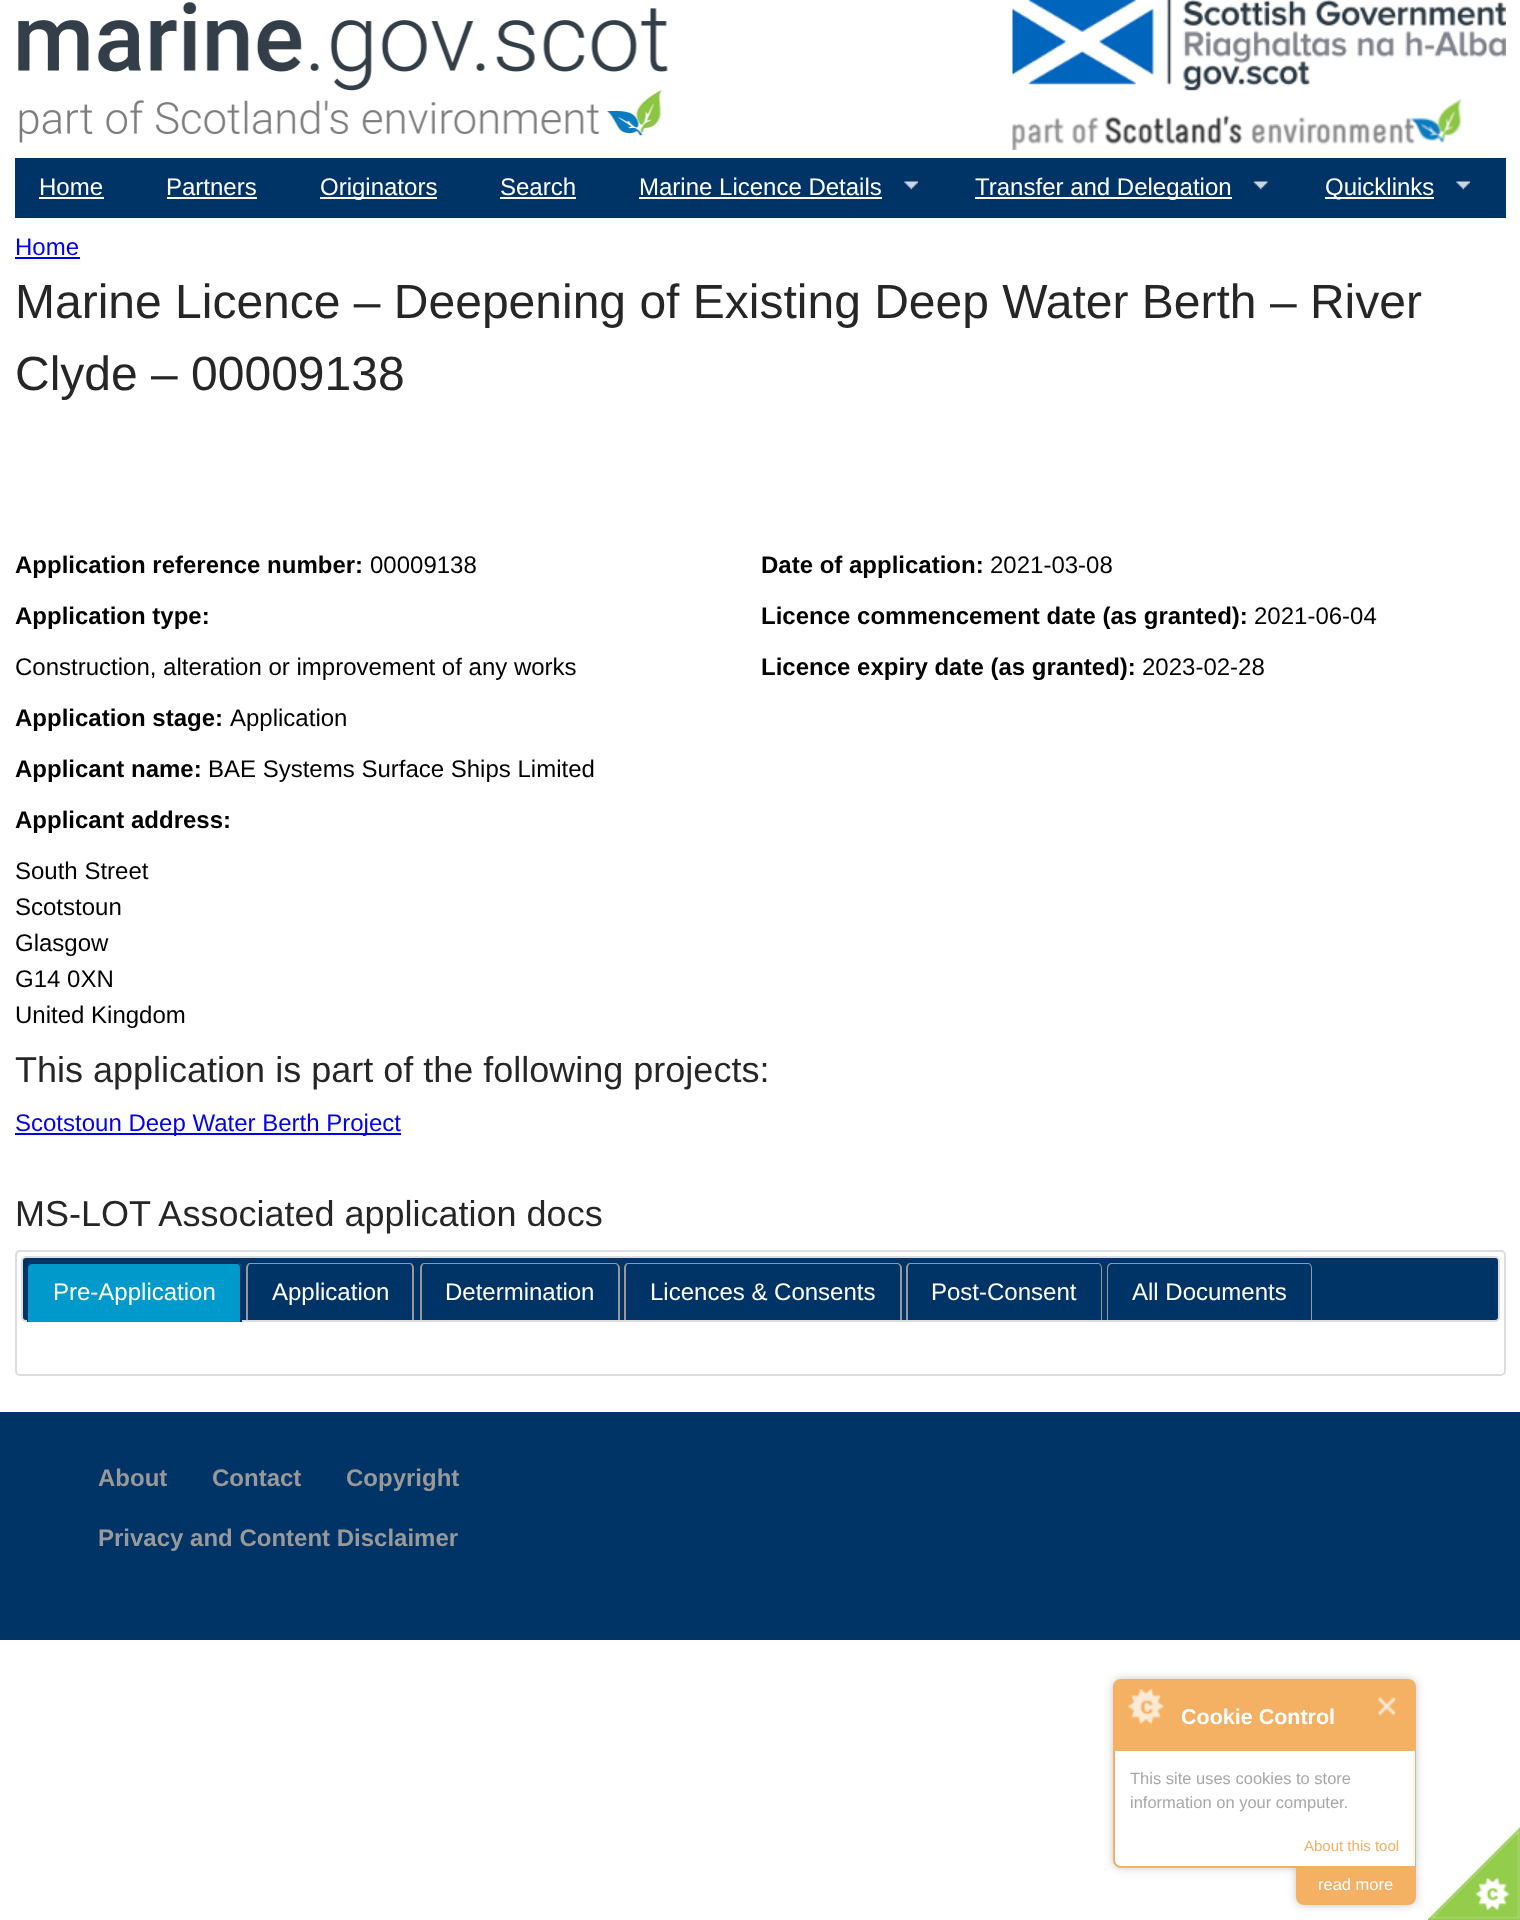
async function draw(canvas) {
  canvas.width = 1520;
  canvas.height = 1920;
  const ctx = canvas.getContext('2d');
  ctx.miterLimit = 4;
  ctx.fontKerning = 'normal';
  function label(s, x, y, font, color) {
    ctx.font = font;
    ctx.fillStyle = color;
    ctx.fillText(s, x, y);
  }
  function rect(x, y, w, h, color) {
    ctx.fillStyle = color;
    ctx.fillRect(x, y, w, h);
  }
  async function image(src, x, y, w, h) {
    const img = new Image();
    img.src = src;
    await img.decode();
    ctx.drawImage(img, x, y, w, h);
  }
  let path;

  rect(0, 0, 1520, 1920, '#fff');
  await image('assets/img1.png', 18, 2, 650, 141);
  await image('assets/img2.png', 1012, 0, 494, 150);
  rect(15, 158, 1491, 60, '#036');
  label('Home', 39, 195, '24px Liberation Sans', '#fff');
  rect(39, 197, 65, 2, '#fff');
  label('Partners', 166, 195, '24px Liberation Sans', '#fff');
  rect(167, 197, 90, 2, '#fff');
  rect(320, 197, 117, 2, '#fff');
  label('Originators', 320, 195, '24px Liberation Sans', '#fff');
  label('Search', 500, 195, '24px Liberation Sans', '#fff');
  rect(500, 197, 76, 2, '#fff');
  label('Marine Licence Details', 639, 195, '24px Liberation Sans', '#fff');
  rect(639, 197, 243, 2, '#fff');
  await image('assets/img3.png', 904, 181, 14, 9);
  rect(975, 197, 257, 2, '#fff');
  label('Transfer and Delegation', 975, 195, '24px Liberation Sans', '#fff');
  await image('assets/img4.png', 1253, 181, 15, 9);
  rect(1325, 197, 109, 2, '#fff');
  label('Quicklinks', 1325, 195, '24px Liberation Sans', '#fff');
  await image('assets/img3.png', 1456, 181, 14, 9);
  label('Home', 15, 255, '24px Liberation Sans', '#00e');
  rect(15, 257, 65, 2, '#00e');
  label('Marine Licence – Deepening of Existing Deep Water Berth – River', 15, 318, '48px Liberation Sans', '#262626');
  label('Clyde – 00009138', 15, 390, '48px Liberation Sans', '#262626');
  label('Application reference number:', 15, 573, 'bold 24px Liberation Sans', '#000');
  label('00009138', 370, 573, '24px Liberation Sans', '#000');
  label('Application type:', 15, 624, 'bold 24px Liberation Sans', '#000');
  label('Construction, alteration or improvement of any works', 15, 675, '24px Liberation Sans', '#000');
  label('Application stage:', 15, 726, 'bold 24px Liberation Sans', '#000');
  label('Application', 230, 726, '24px Liberation Sans', '#000');
  label('Applicant name:', 15, 777, 'bold 24px Liberation Sans', '#000');
  label('BAE Systems Surface Ships Limited', 208, 777, '24px Liberation Sans', '#000');
  label('Applicant address:', 15, 828, 'bold 24px Liberation Sans', '#000');
  label('South Street', 15, 879, '24px Liberation Sans', '#000');
  label('Scotstoun', 15, 915, '24px Liberation Sans', '#000');
  label('Glasgow', 15, 951, '24px Liberation Sans', '#000');
  label('G14 0XN', 15, 987, '24px Liberation Sans', '#000');
  label('United Kingdom', 15, 1023, '24px Liberation Sans', '#000');
  label('Date of application:', 761, 573, 'bold 24px Liberation Sans', '#000');
  label('2021-03-08', 990, 573, '24px Liberation Sans', '#000');
  label('Licence commencement date (as granted):', 761, 624, 'bold 24px Liberation Sans', '#000');
  label('2021-06-04', 1254, 624, '24px Liberation Sans', '#000');
  label('Licence expiry date (as granted):', 761, 675, 'bold 24px Liberation Sans', '#000');
  label('2023-02-28', 1142, 675, '24px Liberation Sans', '#000');
  label('This application is part of the following projects:', 15, 1082, '36px Liberation Sans', '#262626');
  rect(15, 1133, 386, 2, '#00e');
  label('Scotstoun Deep Water Berth Project', 15, 1131, '24px Liberation Sans', '#00e');
  label('MS-LOT Associated application docs', 15, 1226, '36px Liberation Sans', '#262626');
  ctx.beginPath();
  ctx.roundRect(16, 1251, 1489, 124, 4);
  ctx.strokeStyle = '#ddd';
  ctx.lineWidth = 2;
  ctx.stroke();
  ctx.fillStyle = '#036';
  ctx.beginPath();
  ctx.roundRect(22, 1257, 1477, 64, 4);
  ctx.fill();
  ctx.stroke();
  ctx.fillStyle = '#09c';
  ctx.beginPath();
  ctx.roundRect(27, 1263, 215, 59, [5, 5, 0, 0]);
  ctx.fill();
  ctx.fillStyle = '#036';
  path = new Path2D('M32 1263H237C239 1263 242 1265 242 1268V1322H27V1268C27 1265 29 1263 32 1263ZM32 1264H237C239 1264 240 1266 240 1268V1322H28V1268C28 1266 30 1264 32 1264Z');
  ctx.fill(path, 'evenodd');
  label('Pre-Application', 53, 1300, '24px Liberation Sans', '#fff');
  ctx.fillStyle = '#999';
  path = new Path2D('M250 1263H410C412 1263 414 1265 414 1268V1320H246V1268C246 1265 248 1263 250 1263ZM250 1264H410C411 1264 412 1266 412 1268V1320H248V1268C248 1266 249 1264 250 1264Z');
  ctx.fill(path, 'evenodd');
  label('Application', 272, 1300, '24px Liberation Sans', '#fff');
  ctx.fillStyle = '#999';
  path = new Path2D('M424 1263H615C617 1263 620 1265 620 1268V1320H420V1268C420 1265 422 1263 424 1263ZM424 1264H615C617 1264 618 1266 618 1268V1320H422V1268C422 1266 423 1264 424 1264Z');
  ctx.fill(path, 'evenodd');
  label('Determination', 445, 1300, '24px Liberation Sans', '#fff');
  ctx.fillStyle = '#999';
  path = new Path2D('M628 1263H897C899 1263 902 1265 902 1268V1320H624V1268C624 1265 626 1263 628 1263ZM628 1264H897C899 1264 900 1266 900 1268V1320H626V1268C626 1266 627 1264 628 1264Z');
  ctx.fill(path, 'evenodd');
  label('Licences & Consents', 650, 1300, '24px Liberation Sans', '#fff');
  ctx.fillStyle = '#999';
  path = new Path2D('M910 1263H1098C1100 1263 1102 1265 1102 1268V1320H906V1268C906 1265 908 1263 910 1263ZM910 1264H1098C1100 1264 1101 1266 1101 1268V1320H908V1268C908 1266 909 1264 910 1264Z');
  ctx.fill(path, 'evenodd');
  label('Post-Consent', 931, 1300, '24px Liberation Sans', '#fff');
  ctx.fillStyle = '#999';
  path = new Path2D('M1112 1263H1308C1310 1263 1312 1265 1312 1268V1320H1107V1268C1107 1265 1109 1263 1112 1263ZM1112 1264H1308C1310 1264 1311 1266 1311 1268V1320H1108V1268C1108 1266 1110 1264 1112 1264Z');
  ctx.fill(path, 'evenodd');
  label('All Documents', 1132, 1300, '24px Liberation Sans', '#fff');
  rect(0, 1412, 1520, 228, '#036');
  label('About', 98, 1486, 'bold 24px Liberation Sans', '#999');
  label('Contact', 212, 1486, 'bold 24px Liberation Sans', '#999');
  label('Copyright', 346, 1486, 'bold 24px Liberation Sans', '#999');
  label('Privacy and Content Disclaimer', 98, 1546, 'bold 24px Liberation Sans', '#999');
  await image('assets/img7.png', 1428, 1827, 92, 93);
  ctx.fillStyle = '#4343434d';
  ctx.filter = 'blur(4px)';
  ctx.beginPath();
  ctx.roundRect(1113, 1679, 303, 189, 8);
  ctx.fill();
  ctx.filter = 'none';
  ctx.fillStyle = '#fff';
  ctx.beginPath();
  ctx.roundRect(1114, 1680, 301, 187, [7, 7, 0, 7]);
  ctx.fill();
  ctx.strokeStyle = '#f4b063';
  ctx.stroke();
  ctx.fillStyle = '#4343434d';
  ctx.filter = 'blur(4px)';
  ctx.beginPath();
  ctx.roundRect(1296, 1865, 120, 40, 8);
  ctx.fill();
  ctx.filter = 'none';
  ctx.fillStyle = '#f4b063';
  ctx.beginPath();
  ctx.roundRect(1296, 1865, 120, 40, [0, 0, 8, 8]);
  ctx.fill();
  ctx.fillStyle = '#fff';
  ctx.beginPath();
  ctx.roundRect(1115, 1680, 300, 186, [8, 8, 0, 8]);
  ctx.fill();
  ctx.fillStyle = '#f4b063';
  ctx.beginPath();
  ctx.roundRect(1115, 1680, 300, 71, [5, 5, 0, 0]);
  ctx.fill();
  await image('assets/img5.png', 1128, 1689, 37, 36);
  label('Cookie Control', 1181, 1724, 'bold 21.5px Liberation Sans', '#fff');
  await image('assets/img6.png', 1378, 1697, 18, 19);
  label('This site uses cookies to store', 1130, 1784, '16.5px Liberation Sans', '#a7a7a7');
  label('information on your computer.', 1130, 1808, '16.5px Liberation Sans', '#a7a7a7');
  label('About this tool', 1304, 1851, '15px Liberation Sans', '#f4b063');
  label('read more', 1318, 1890, '16.5px Liberation Sans', '#fff');
}

draw(document.querySelector('canvas'));
